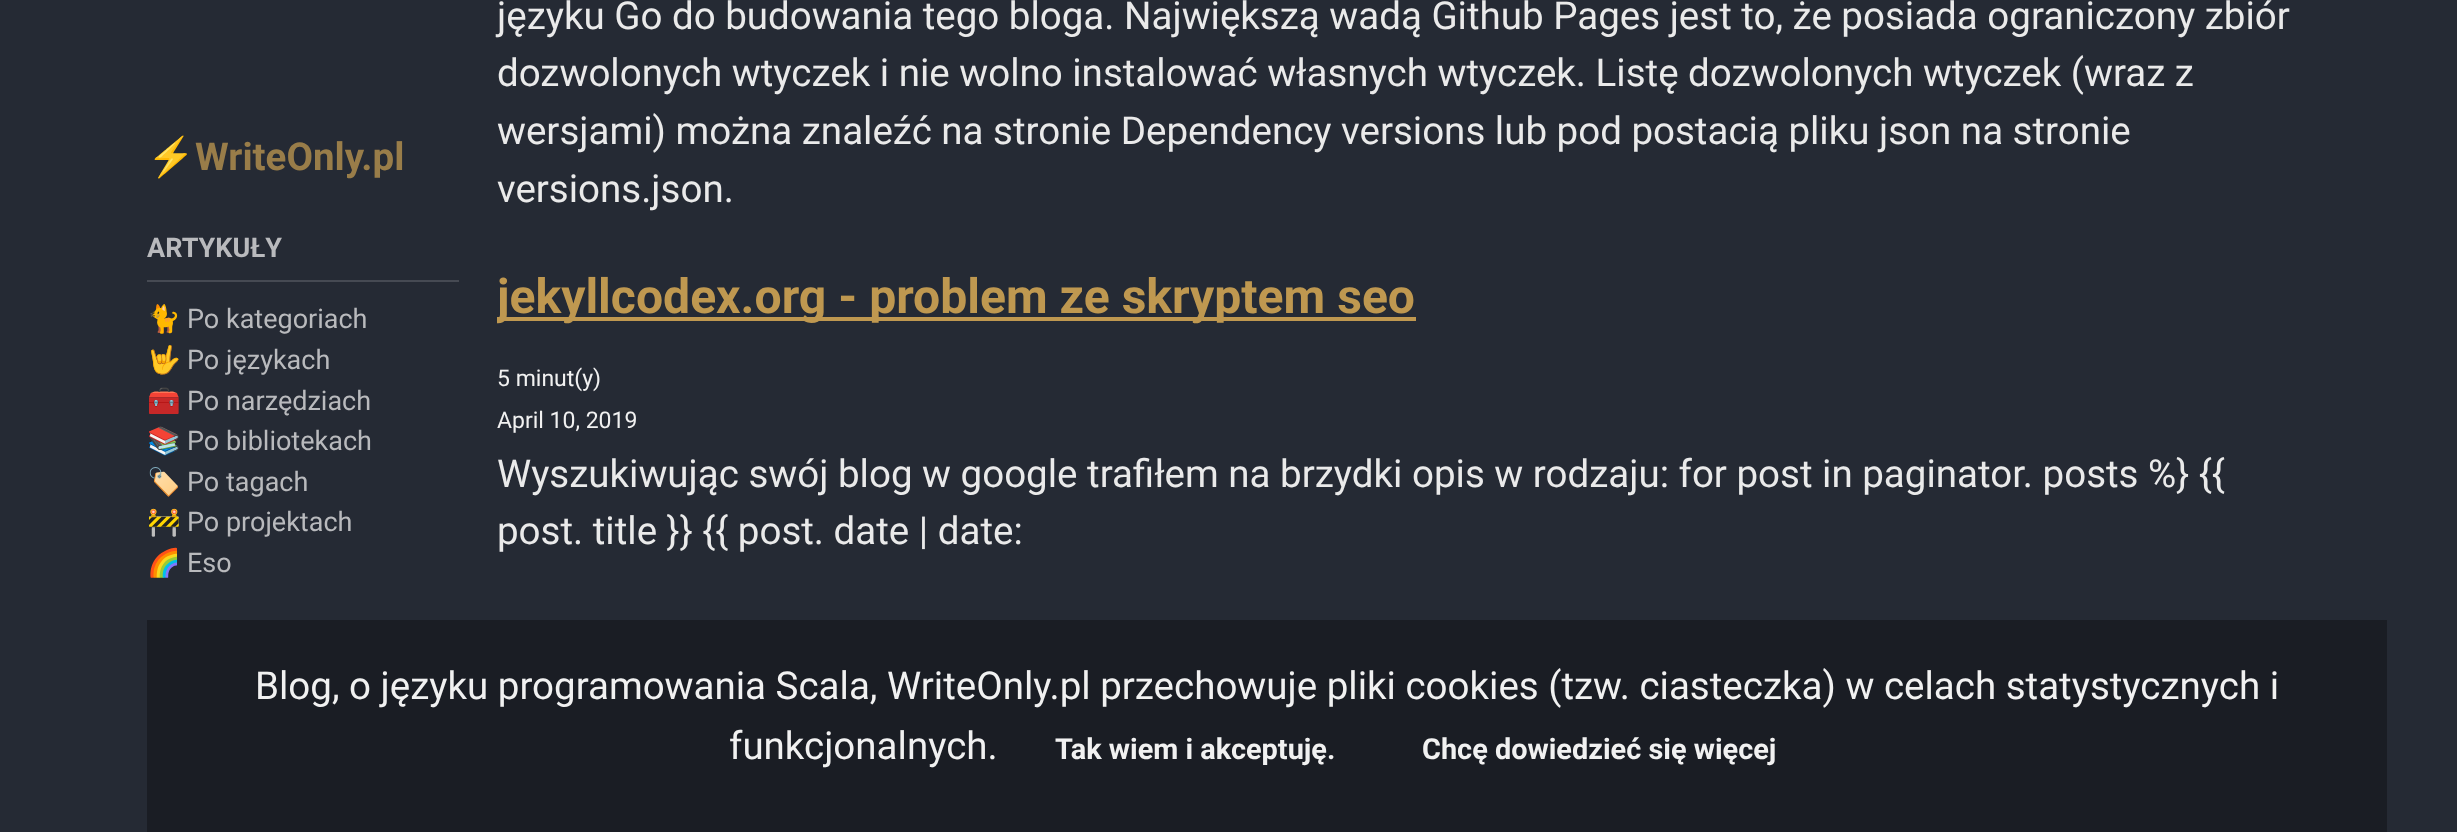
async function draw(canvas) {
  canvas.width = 2457;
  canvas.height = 832;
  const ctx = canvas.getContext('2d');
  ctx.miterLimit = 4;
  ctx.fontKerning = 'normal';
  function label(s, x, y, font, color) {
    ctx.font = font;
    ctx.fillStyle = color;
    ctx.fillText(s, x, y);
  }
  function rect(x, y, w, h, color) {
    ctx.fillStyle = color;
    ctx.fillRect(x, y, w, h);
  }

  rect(0, 0, 2457, 832, '#252a34');
  label('⚡', 147, 170, 'bold 38.5px Noto Color Emoji', '#997d49');
  label('WriteOnly.pl', 195, 170, 'bold 38.5px Roboto', '#997d49');
  rect(147, 280, 312, 2, '#464a53');
  label('ARTYKUŁY', 147, 257, 'bold 27px Roboto', '#b9babd');
  label('🐈', 147, 328, '27px Noto Color Emoji', '#b9babd');
  label('Po kategoriach', 187, 328, '27px Roboto', '#b9babd');
  label('🤟', 147, 369, '27px Noto Color Emoji', '#b9babd');
  label('Po językach', 187, 369, '27px Roboto', '#b9babd');
  label('🧰', 147, 410, '27px Noto Color Emoji', '#b9babd');
  label('Po narzędziach', 187, 410, '27px Roboto', '#b9babd');
  label('📚', 147, 450, '27px Noto Color Emoji', '#b9babd');
  label('Po bibliotekach', 187, 450, '27px Roboto', '#b9babd');
  label('🏷️', 147, 491, '27px Noto Color Emoji', '#b9babd');
  label('Po tagach', 187, 491, '27px Roboto', '#b9babd');
  label('🚧', 147, 531, '27px Noto Color Emoji', '#b9babd');
  label('Po projektach', 187, 531, '27px Roboto', '#b9babd');
  label('🌈', 147, 572, '27px Noto Color Emoji', '#b9babd');
  label('Eso', 187, 572, '27px Roboto', '#b9babd');
  label('języku Go do budowania tego bloga. Największą wadą Github Pages jest to, że posiada ograniczony zbiór', 497, 29, '38.5px Roboto', '#eaeaea');
  label('dozwolonych wtyczek i nie wolno instalować własnych wtyczek. Listę dozwolonych wtyczek (wraz z', 497, 86, '38.5px Roboto', '#eaeaea');
  label('wersjami) można znaleźć na stronie Dependency versions lub pod postacią pliku json na stronie', 497, 144, '38.5px Roboto', '#eaeaea');
  label('versions.json.', 497, 202, '38.5px Roboto', '#eaeaea');
  rect(497, 317, 919, 4, '#bf9850');
  ctx.save();
  ctx.beginPath();
  ctx.rect(497, 268, 1813, 82);
  ctx.clip();
  label('jekyllcodex.org - problem ze skryptem seo', 497, 313, 'bold 48.1px Roboto', '#bf9850');
  ctx.restore();
  label('5 minut(y)', 497, 386, '23px Roboto', '#f1f1f1');
  label('April 10, 2019', 497, 428, '23px Roboto', '#f1f1f1');
  label('Wyszukiwując swój blog w google trafiłem na brzydki opis w rodzaju: for post in paginator. posts %} {{', 497, 487, '38.5px Roboto', '#eaeaea');
  label('post. title }} {{ post. date | date:', 497, 544, '38.5px Roboto', '#eaeaea');
  rect(147, 620, 2240, 212, '#1a1d24');
  label('Blog, o języku programowania Scala, WriteOnly.pl przechowuje pliki cookies (tzw. ciasteczka) w celach statystycznych i', 255, 699, '38.5px Roboto', '#f1f1f1');
  label('funkcjonalnych.', 729, 759, '38.5px Roboto', '#f1f1f1');
  label('Tak wiem i akceptuję.', 1055, 759, 'bold 28.9px Roboto', '#f1f1f1');
  label('Chcę dowiedzieć się więcej', 1422, 759, 'bold 28.9px Roboto', '#f1f1f1');
}

draw(document.querySelector('canvas'));
